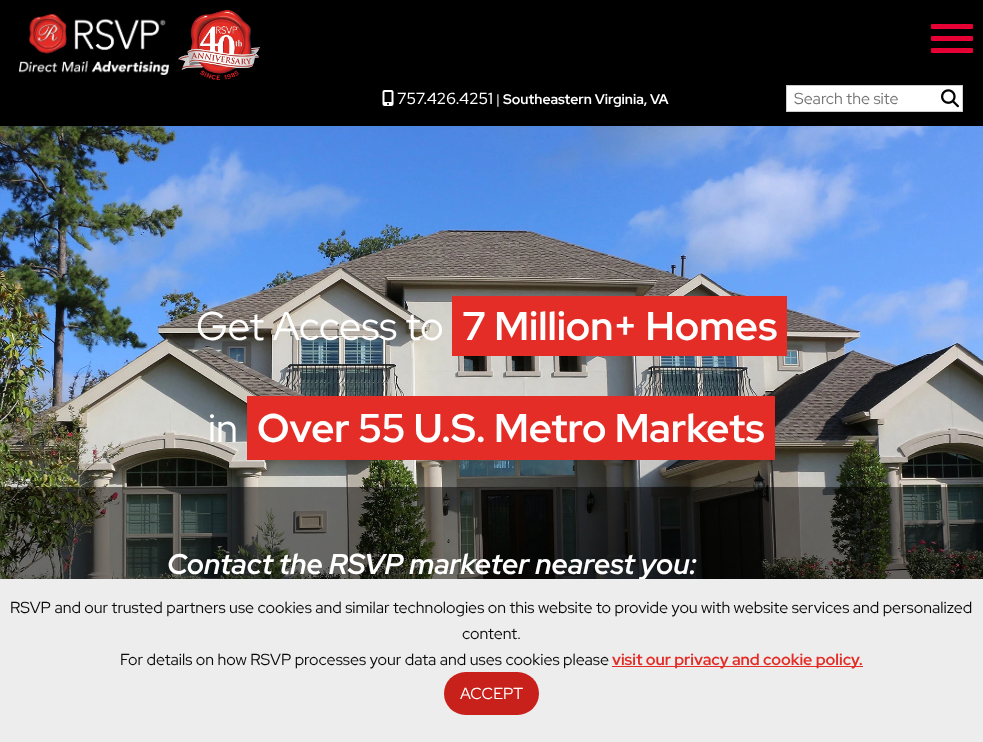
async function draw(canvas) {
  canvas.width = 983;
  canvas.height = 742;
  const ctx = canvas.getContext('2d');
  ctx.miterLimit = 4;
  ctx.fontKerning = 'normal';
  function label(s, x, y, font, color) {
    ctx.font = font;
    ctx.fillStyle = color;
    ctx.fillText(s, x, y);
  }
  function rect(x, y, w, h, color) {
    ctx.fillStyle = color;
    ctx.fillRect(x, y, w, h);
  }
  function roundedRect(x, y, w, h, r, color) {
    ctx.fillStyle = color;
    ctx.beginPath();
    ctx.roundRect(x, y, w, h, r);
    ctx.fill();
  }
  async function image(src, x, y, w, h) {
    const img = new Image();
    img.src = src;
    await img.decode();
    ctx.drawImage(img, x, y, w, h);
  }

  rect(0, 0, 983, 742, '#fff');
  rect(0, 0, 983, 126, '#000');
  await image('assets/img1.png', 19, 14, 150, 61);
  await image('assets/img2.png', 178, 10, 82, 70);
  roundedRect(931, 24, 42, 5, 1, '#e70033');
  roundedRect(931, 36, 42, 5, 1, '#e70033');
  roundedRect(931, 48, 42, 5, 1, '#e70033');
  await image('assets/img3.png', 382, 90, 12, 16);
  label('757.426.4251', 397, 104, '500 16px Red Hat Display', '#fff');
  label('|', 496, 104, '14px Red Hat Display', '#fff');
  label('Southeastern Virginia, VA', 503, 104, 'bold 14px Red Hat Display', '#fff');
  ctx.strokeStyle = '#ccc';
  ctx.strokeRect(786.5, 85.5, 176, 26);
  rect(787, 86, 175, 25, '#fff');
  label('Search the site', 794, 104, '16px Red Hat Display', '#757575');
  await image('assets/img4.png', 941, 89, 18, 19);
  await image('assets/img5.png', 0, 126, 983, 453);
  label('Get Access to', 196, 340, '40px Red Hat Display', '#fff');
  rect(452, 296, 335, 60, '#e32d26');
  label('7 Million+ Homes', 462, 340, 'bold 40px Red Hat Display', '#fff');
  label('in', 208, 442, '40px Red Hat Display', '#fff');
  rect(247, 396, 528, 64, '#e32d26');
  label('Over 55 U.S. Metro Markets', 257, 442, 'bold 40px Red Hat Display', '#fff');
  rect(0, 487, 983, 92, '#00000080');
  label('Contact the RSVP marketer nearest you:', 167, 574, 'italic bold 28.75px Red Hat Display', '#fff');
  rect(0, 579, 983, 163, '#ededed');
  label('RSVP and our trusted partners use cookies and similar technologies on this website to provide you with website services and personalized', 10, 613, '16px Red Hat Display', '#0a0a0a');
  label('content.', 462, 639, '16px Red Hat Display', '#0a0a0a');
  label('For details on how RSVP processes your data and uses cookies please', 120, 665, '16px Red Hat Display', '#0a0a0a');
  rect(612, 666, 251, 1, '#e32d26');
  label('visit our privacy and cookie policy.', 612, 665, 'bold 16px Red Hat Display', '#e32d26');
  roundedRect(444, 672, 95, 43, 21.5, '#c8201a');
  label('ACCEPT', 460, 699, '16px Red Hat Display', '#fff');
}

draw(document.querySelector('canvas'));
